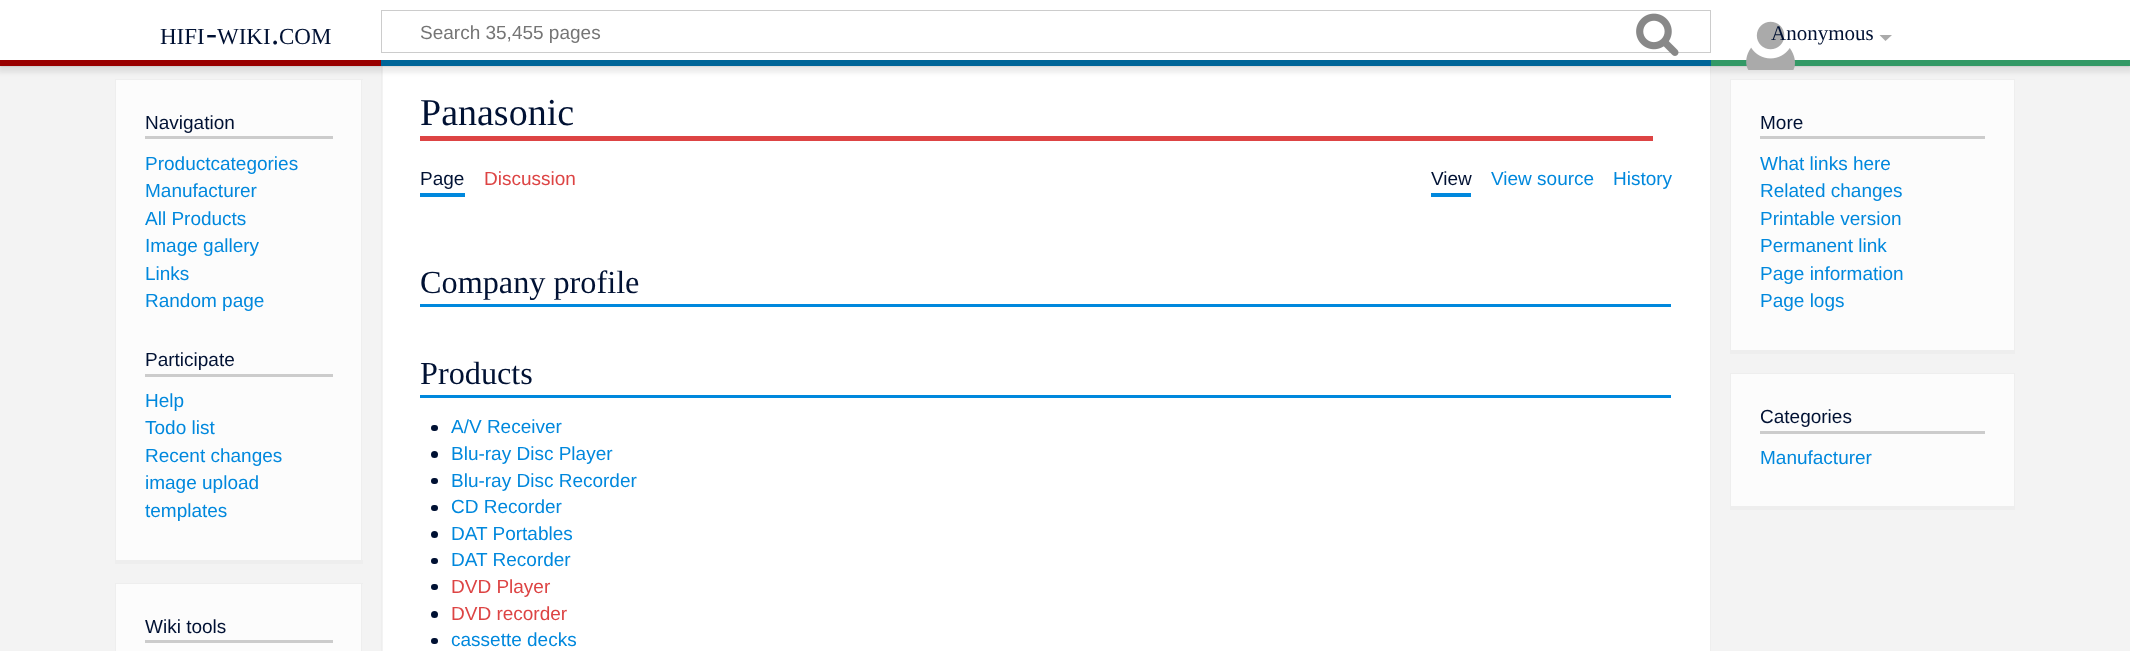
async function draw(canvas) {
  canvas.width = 2130;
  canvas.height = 651;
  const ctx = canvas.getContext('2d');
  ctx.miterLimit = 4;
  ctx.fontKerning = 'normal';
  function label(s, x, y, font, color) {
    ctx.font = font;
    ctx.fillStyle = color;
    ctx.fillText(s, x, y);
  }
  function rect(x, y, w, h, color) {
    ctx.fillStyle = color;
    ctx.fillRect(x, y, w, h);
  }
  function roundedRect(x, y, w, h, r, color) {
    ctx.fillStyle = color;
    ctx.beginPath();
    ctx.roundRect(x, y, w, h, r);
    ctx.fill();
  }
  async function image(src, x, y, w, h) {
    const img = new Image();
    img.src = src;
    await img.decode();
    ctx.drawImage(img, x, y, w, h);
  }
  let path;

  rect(0, 0, 2130, 651, '#f3f3f3');
  rect(383, 66, 1327, 585, '#fff');
  rect(1710, 60, 1, 591, '#eee');
  rect(381, 60, 1, 591, '#eee');
  ctx.fillStyle = '#00000033';
  ctx.filter = 'blur(1px)';
  ctx.beginPath();
  ctx.rect(0, 60, 2130, 6);
  ctx.fill();
  ctx.filter = 'none';
  rect(115, 79, 248, 1, '#eee');
  rect(361, 79, 1, 485, '#eee');
  rect(115, 560, 248, 4, '#eee');
  rect(115, 79, 1, 485, '#eee');
  rect(1730, 79, 285, 1, '#eee');
  rect(2014, 79, 1, 275, '#eee');
  rect(1730, 350, 285, 4, '#eee');
  rect(1730, 79, 1, 275, '#eee');
  ctx.fillStyle = '#00000012';
  ctx.filter = 'blur(2px)';
  ctx.beginPath();
  ctx.rect(-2, 61, 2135, 12);
  ctx.fill();
  ctx.filter = 'none';
  rect(0, 0, 2130, 60, '#fff');
  label('HIFI', 160, 44, '23px Liberation Serif', '#013');
  label('-', 206, 44, '33px Liberation Serif', '#013');
  label('WIKI', 217, 44, '23px Liberation Serif', '#013');
  label('COM', 279, 44, '23px Liberation Serif', '#013');
  label('.', 271, 44, '33px Liberation Serif', '#013');
  ctx.strokeStyle = '#ccc';
  ctx.strokeRect(381.5, 10.5, 1329, 42);
  label('Search 35,455 pages', 420, 39, '19px Liberation Sans', '#757575');
  await image('assets/img1.png', 1636, 13, 43, 43);
  rect(1711, 60, 419, 6, '#396');
  await image('assets/img2.png', 1746, 21, 49, 49);
  label('Anonymous', 1771, 40, '21px Liberation Serif', '#013');
  ctx.fillStyle = '#aaa';
  path = new Path2D('M1892 35L1885.5 41L1879.5 35Z');
  ctx.fill(path);
  rect(0, 60, 381, 6, '#900');
  rect(381, 60, 1330, 6, '#069');
  rect(116, 80, 245, 480, '#fcfcfc');
  rect(145, 136, 188, 3, '#ccc');
  label('Navigation', 145, 129, '19px Liberation Sans', '#013');
  label('Productcategories', 145, 170, '19px Liberation Sans', '#08d');
  label('Manufacturer', 145, 197, '19px Liberation Sans', '#08d');
  label('All Products', 145, 225, '19px Liberation Sans', '#08d');
  label('Image gallery', 145, 252, '19px Liberation Sans', '#08d');
  label('Links', 145, 280, '19px Liberation Sans', '#08d');
  label('Random page', 145, 307, '19px Liberation Sans', '#08d');
  rect(145, 374, 188, 3, '#ccc');
  label('Participate', 145, 366, '19px Liberation Sans', '#013');
  label('Help', 145, 407, '19px Liberation Sans', '#08d');
  label('Todo list', 145, 434, '19px Liberation Sans', '#08d');
  label('Recent changes', 145, 462, '19px Liberation Sans', '#08d');
  label('image upload', 145, 489, '19px Liberation Sans', '#08d');
  label('templates', 145, 517, '19px Liberation Sans', '#08d');
  rect(116, 584, 245, 67, '#fcfcfc');
  rect(115, 583, 248, 1, '#eee');
  rect(361, 583, 1, 68, '#eee');
  rect(115, 583, 1, 68, '#eee');
  rect(145, 640, 188, 3, '#ccc');
  label('Wiki tools', 145, 633, '19px Liberation Sans', '#013');
  rect(420, 136, 1233, 5, '#d44');
  label('Panasonic', 420, 125, '38px Liberation Serif', '#013');
  rect(420, 193, 45, 4, '#08d');
  label('Page', 420, 185, '19px Liberation Sans', '#013');
  label('Discussion', 484, 185, '19px Liberation Sans', '#d44');
  rect(1431, 193, 40, 4, '#08d');
  label('View', 1431, 185, '19px Liberation Sans', '#013');
  label('View source', 1491, 185, '19px Liberation Sans', '#08d');
  label('History', 1613, 185, '19px Liberation Sans', '#08d');
  rect(420, 304, 1251, 3, '#08d');
  label('Company profile', 420, 293, '32.25px Liberation Serif', '#013');
  rect(420, 395, 1251, 3, '#08d');
  label('Products', 420, 384, '32.25px Liberation Serif', '#013');
  roundedRect(431, 425, 7, 6, 3, '#013');
  label('A/V Receiver', 451, 433, '19px Liberation Sans', '#08d');
  ctx.fillStyle = '#013';
  ctx.beginPath();
  ctx.arc(434.5, 454.5, 3.5, 0, 2 * Math.PI);
  ctx.fill();
  label('Blu-ray Disc Player', 451, 460, '19px Liberation Sans', '#08d');
  roundedRect(431, 478, 7, 6, 3, '#013');
  label('Blu-ray Disc Recorder', 451, 487, '19px Liberation Sans', '#08d');
  roundedRect(431, 505, 7, 6, 3, '#013');
  label('CD Recorder', 451, 513, '19px Liberation Sans', '#08d');
  ctx.fillStyle = '#013';
  ctx.beginPath();
  ctx.arc(434.5, 534.5, 3.5, 0, 2 * Math.PI);
  ctx.fill();
  label('DAT Portables', 451, 540, '19px Liberation Sans', '#08d');
  roundedRect(431, 558, 7, 6, 3, '#013');
  label('DAT Recorder', 451, 566, '19px Liberation Sans', '#08d');
  roundedRect(431, 584, 7, 6, 3, '#013');
  label('DVD Player', 451, 593, '19px Liberation Sans', '#d44');
  ctx.fillStyle = '#013';
  ctx.beginPath();
  ctx.arc(434.5, 614.5, 3.5, 0, 2 * Math.PI);
  ctx.fill();
  label('DVD recorder', 451, 620, '19px Liberation Sans', '#d44');
  roundedRect(431, 638, 7, 6, 3, '#013');
  label('cassette decks', 451, 646, '19px Liberation Sans', '#08d');
  rect(1731, 80, 283, 270, '#fcfcfc');
  rect(1760, 136, 225, 3, '#ccc');
  label('More', 1760, 129, '19px Liberation Sans', '#013');
  label('What links here', 1760, 170, '19px Liberation Sans', '#08d');
  label('Related changes', 1760, 197, '19px Liberation Sans', '#08d');
  label('Printable version', 1760, 225, '19px Liberation Sans', '#08d');
  label('Permanent link', 1760, 252, '19px Liberation Sans', '#08d');
  label('Page information', 1760, 280, '19px Liberation Sans', '#08d');
  label('Page logs', 1760, 307, '19px Liberation Sans', '#08d');
  rect(1731, 374, 283, 132, '#fcfcfc');
  rect(1730, 373, 285, 1, '#eee');
  rect(2014, 373, 1, 137, '#eee');
  rect(1730, 506, 285, 4, '#eee');
  rect(1730, 373, 1, 137, '#eee');
  rect(1760, 431, 225, 3, '#ccc');
  label('Categories', 1760, 423, '19px Liberation Sans', '#013');
  label('Manufacturer', 1760, 464, '19px Liberation Sans', '#08d');
}

draw(document.querySelector('canvas'));
